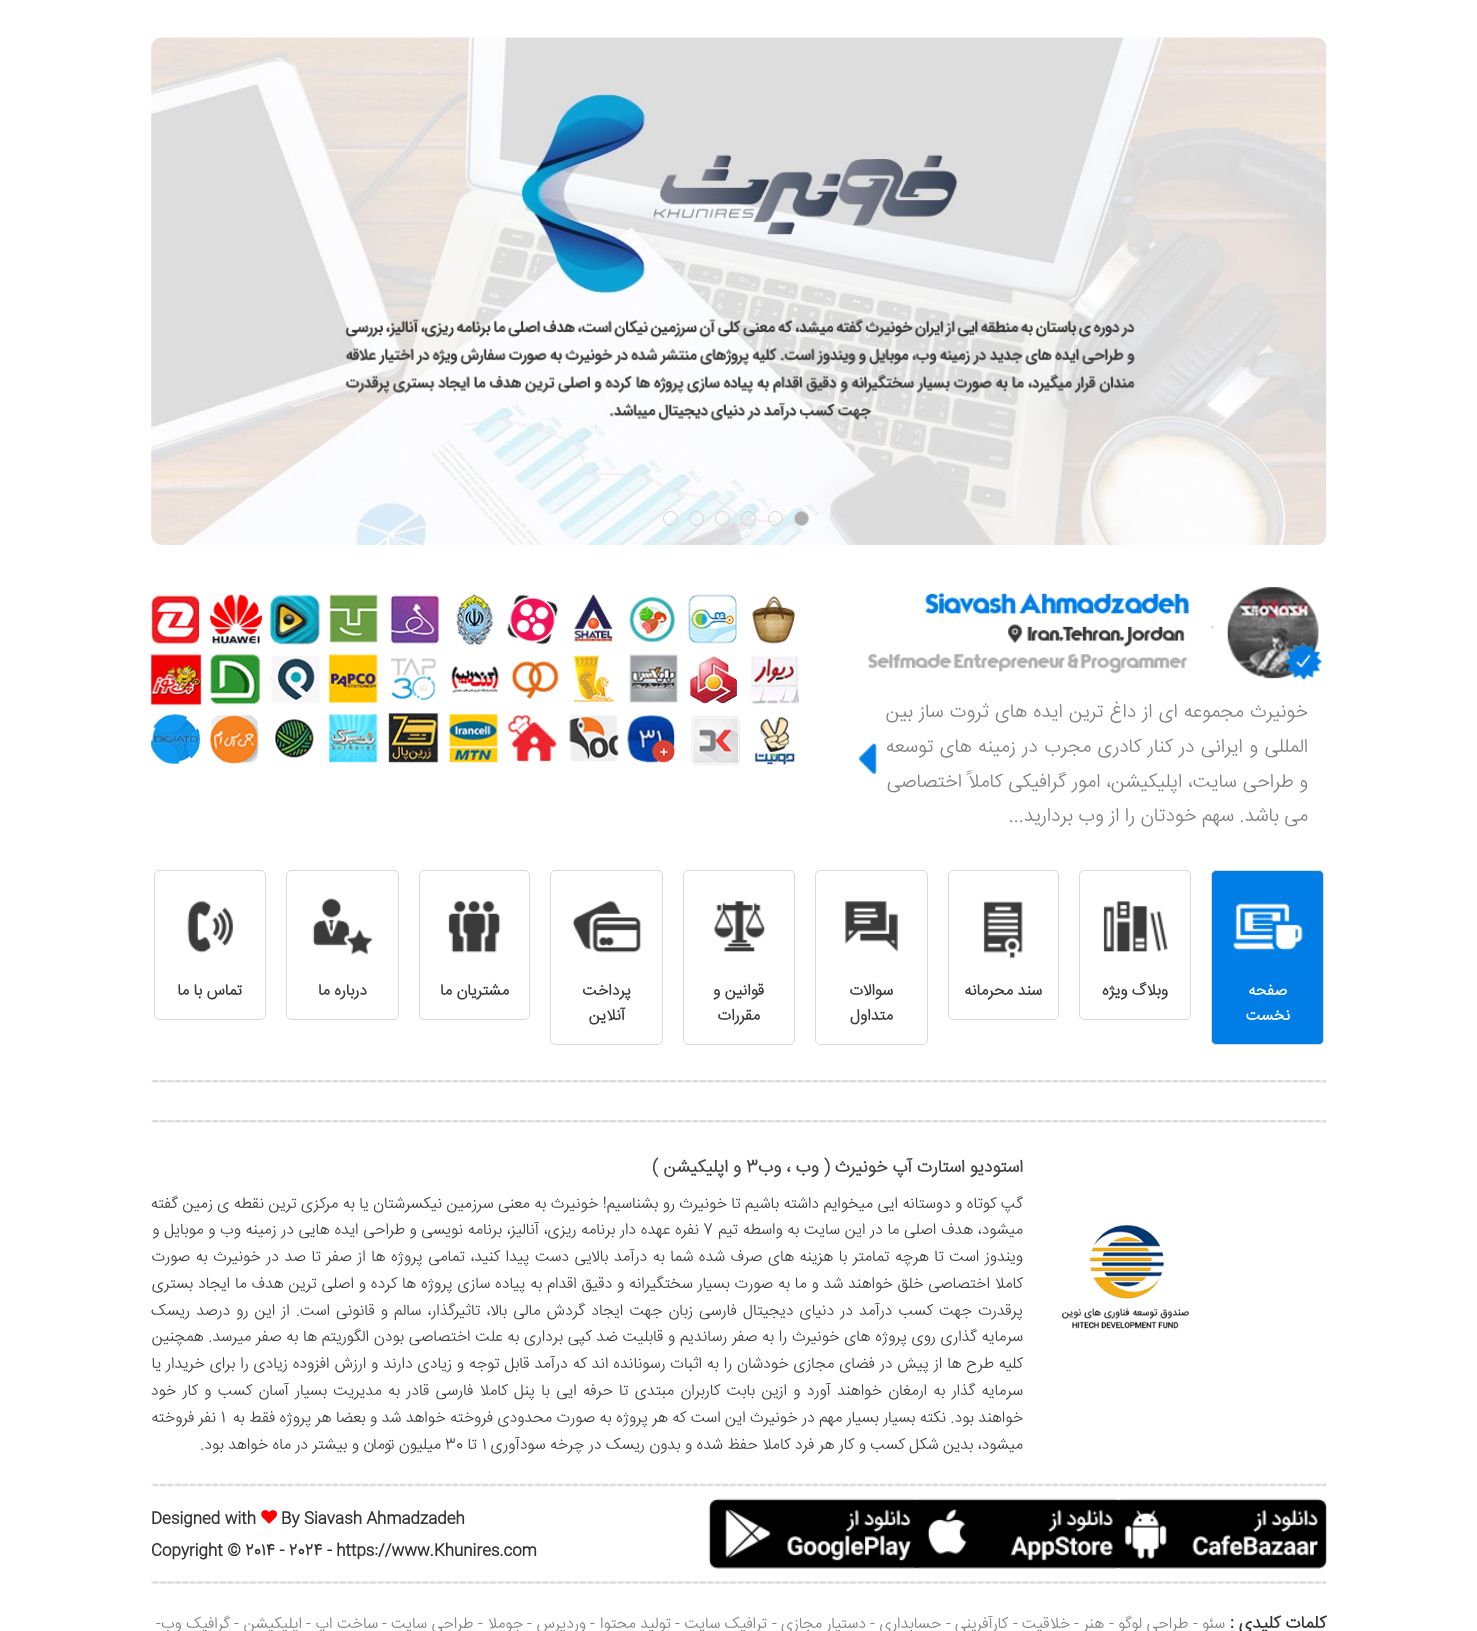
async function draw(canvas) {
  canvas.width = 1477;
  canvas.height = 1631;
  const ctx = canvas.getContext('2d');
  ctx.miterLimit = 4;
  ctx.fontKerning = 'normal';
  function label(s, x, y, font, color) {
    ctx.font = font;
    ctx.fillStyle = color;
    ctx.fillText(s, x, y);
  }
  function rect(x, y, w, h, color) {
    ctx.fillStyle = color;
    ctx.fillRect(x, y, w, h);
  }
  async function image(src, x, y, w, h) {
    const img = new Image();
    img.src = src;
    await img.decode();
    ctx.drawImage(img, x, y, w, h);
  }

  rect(0, 0, 1477, 1631, '#fff');
  await image('assets/img1.png', 151, 37, 1176, 508);
  ctx.fillStyle = '#adadad';
  ctx.beginPath();
  ctx.arc(801.5, 518.5, 7, 0, 2 * Math.PI);
  ctx.fill();
  ctx.strokeStyle = '#d2d1d2';
  ctx.stroke();
  ctx.beginPath();
  ctx.arc(775.5, 518.5, 7, 0, 2 * Math.PI);
  ctx.stroke();
  ctx.beginPath();
  ctx.arc(748.5, 518.5, 7, 0, 2 * Math.PI);
  ctx.stroke();
  ctx.beginPath();
  ctx.arc(722.5, 518.5, 7, 0, 2 * Math.PI);
  ctx.stroke();
  ctx.beginPath();
  ctx.arc(696.5, 518.5, 7, 0, 2 * Math.PI);
  ctx.stroke();
  ctx.beginPath();
  ctx.arc(670.5, 518.5, 7, 0, 2 * Math.PI);
  ctx.stroke();
  await image('assets/img2.png', 867, 587, 455, 93);
  await image('assets/img3.png', 858, 743, 19, 31);
  ctx.wordSpacing = '0.75px';
  ctx.direction = 'rtl';
  label('خونیرث مجموعه ای از داغ ترین ایده های ثروت ساز بین', 1308, 717, '300 19.25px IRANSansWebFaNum', '#7f7f7f');
  ctx.wordSpacing = '1px';
  label('المللی و ایرانی در کنار کادری مجرب در زمینه های توسعه', 1308, 752, '300 19.25px IRANSansWebFaNum', '#7f7f7f');
  ctx.wordSpacing = '0.4px';
  label('و طراحی سایت، اپلیکیشن، امور گرافیکی کاملاً اختصاصی', 1308, 787, '300 19.25px IRANSansWebFaNum', '#7f7f7f');
  ctx.wordSpacing = '0px';
  label('می باشد. سهم خودتان را از وب بردارید...', 1308, 821, '300 19.25px IRANSansWebFaNum', '#7f7f7f');
  await image('assets/img4.png', 151, 593, 648, 172);
  ctx.fillStyle = '#007ee5';
  ctx.beginPath();
  ctx.roundRect(1211.5, 870.5, 112, 174, 4.5);
  ctx.fill();
  ctx.strokeStyle = '#dadada';
  ctx.stroke();
  await image('assets/img5.png', 1232, 903, 71, 48);
  label('صفحه', 1287, 995, 'bold 15.75px IRANSansWebFaNum', '#fff');
  label('نخست', 1290, 1020, 'bold 15.75px IRANSansWebFaNum', '#fff');
  ctx.beginPath();
  ctx.roundRect(1079.5, 870.5, 111, 149, 4.5);
  ctx.stroke();
  await image('assets/img6.png', 1103, 901, 65, 51);
  label('وبلاگ ویژه', 1168, 995, 'bold 15.75px IRANSansWebFaNum', '#3a3a3a');
  ctx.beginPath();
  ctx.roundRect(948.5, 870.5, 110, 149, 4.5);
  ctx.stroke();
  await image('assets/img7.png', 983, 901, 40, 58);
  label('سند محرمانه', 1042, 995, 'bold 15.75px IRANSansWebFaNum', '#3a3a3a');
  ctx.beginPath();
  ctx.roundRect(815.5, 870.5, 112, 174, 4.5);
  ctx.stroke();
  await image('assets/img8.png', 845, 901, 53, 51);
  label('سوالات', 893, 995, 'bold 15.75px IRANSansWebFaNum', '#3a3a3a');
  label('متداول', 893, 1020, 'bold 15.75px IRANSansWebFaNum', '#3a3a3a');
  ctx.beginPath();
  ctx.roundRect(683.5, 870.5, 111, 174, 4.5);
  ctx.stroke();
  await image('assets/img9.png', 713, 901, 53, 51);
  label('قوانین و', 764, 995, 'bold 15.75px IRANSansWebFaNum', '#3a3a3a');
  label('مقررات', 760, 1020, 'bold 15.75px IRANSansWebFaNum', '#3a3a3a');
  ctx.beginPath();
  ctx.roundRect(550.5, 870.5, 112, 174, 4.5);
  ctx.stroke();
  await image('assets/img10.png', 572, 901, 69, 52);
  label('پرداخت', 631, 995, 'bold 15.75px IRANSansWebFaNum', '#3a3a3a');
  label('آنلاین', 625, 1020, 'bold 15.75px IRANSansWebFaNum', '#3a3a3a');
  ctx.beginPath();
  ctx.roundRect(419.5, 870.5, 110, 149, 4.5);
  ctx.stroke();
  await image('assets/img11.png', 448, 901, 53, 52);
  label('مشتریان ما', 509, 995, 'bold 15.75px IRANSansWebFaNum', '#3a3a3a');
  ctx.beginPath();
  ctx.roundRect(286.5, 870.5, 112, 149, 4.5);
  ctx.stroke();
  await image('assets/img12.png', 312, 898, 61, 56);
  label('درباره ما', 367, 995, 'bold 15.75px IRANSansWebFaNum', '#3a3a3a');
  ctx.beginPath();
  ctx.roundRect(154.5, 870.5, 111, 149, 4.5);
  ctx.stroke();
  await image('assets/img13.png', 187, 901, 47, 52);
  label('تماس با ما', 242, 995, 'bold 15.75px IRANSansWebFaNum', '#3a3a3a');
  await image('assets/img14.png', 151, 1080, 1176, 3);
  await image('assets/img14.png', 151, 1120, 1176, 3);
  await image('assets/img15.png', 1062, 1224, 128, 105);
  label('استودیو استارت آپ خونیرث ( وب ، وب', 1023, 1172, 'bold 17.5px IRANSansWebFaNum', '#464646');
  ctx.direction = 'ltr';
  label('3', 746, 1172, 'bold 17.5px IRANSansWebFaNum', '#464646');
  ctx.direction = 'rtl';
  label('و اپلیکیشن )', 741, 1172, 'bold 17.5px IRANSansWebFaNum', '#464646');
  label('گپ کوتاه و دوستانه ایی میخوایم داشته باشیم تا خونیرث رو بشناسیم! خونیرث به معنی سرزمین نیکسرشتان یا به مرکزی ترین نقطه ی زمین گفته', 1023, 1208, '300 15.75px IRANSansWebFaNum', '#3a3a3a');
  ctx.wordSpacing = '0.25px';
  label('میشود، هدف اصلی ما در این سایت به واسطه تیم', 1023, 1234, '300 15.75px IRANSansWebFaNum', '#3a3a3a');
  ctx.wordSpacing = '0px';
  ctx.direction = 'ltr';
  label('7', 703, 1234, '300 15.75px IRANSansWebFaNum', '#3a3a3a');
  ctx.wordSpacing = '0.25px';
  ctx.direction = 'rtl';
  label('نفره عهده دار برنامه ریزی، آنالیز، برنامه نویسی و طراحی ایده هایی در زمینه وب و موبایل و', 699, 1234, '300 15.75px IRANSansWebFaNum', '#3a3a3a');
  ctx.wordSpacing = '1.1px';
  label('ویندوز است تا هرچه تمامتر با هزینه های صرف شده شما به درآمد بالایی دست پیدا کنید، تمامی پروژه ها از صفر تا صد در خونیرث به صورت', 1023, 1261, '300 15.75px IRANSansWebFaNum', '#3a3a3a');
  ctx.wordSpacing = '0.4px';
  label('کاملا اختصاصی خلق خواهند شد و ما به صورت بسیار سختگیرانه و دقیق اقدام به پیاده سازی پروژه ها کرده و اصلی ترین هدف ما ایجاد بستری', 1023, 1288, '300 15.75px IRANSansWebFaNum', '#3a3a3a');
  ctx.wordSpacing = '1.7px';
  label('پرقدرت جهت کسب درآمد در دنیای دیجیتال فارسی زبان جهت ایجاد گردش مالی بالا، تاثیرگذار، سالم و قانونی است. از این رو درصد ریسک', 1023, 1315, '300 15.75px IRANSansWebFaNum', '#3a3a3a');
  ctx.wordSpacing = '0.3px';
  label('سرمایه گذاری روی پروژه های خونیرث را به صفر رساندیم و قابلیت ضد کپی برداری به علت اختصاصی بودن الگوریتم ها به صفر میرسد. همچنین', 1023, 1341, '300 15.75px IRANSansWebFaNum', '#3a3a3a');
  ctx.wordSpacing = '0.5px';
  label('کلیه طرح ها از پیش در فضای مجازی خودشان را به اثبات رسونانده اند که درآمد قابل توجه و زیادی دارند و ارزش افزوده زیادی را برای خریدار یا', 1023, 1368, '300 15.75px IRANSansWebFaNum', '#3a3a3a');
  ctx.wordSpacing = '1.85px';
  label('سرمایه گذار به ارمغان خواهند آورد و ازین بابت کاربران مبتدی تا حرفه ایی با پنل کاملا فارسی قادر به مدیریت بسیار آسان کسب و کار خود', 1023, 1395, '300 15.75px IRANSansWebFaNum', '#3a3a3a');
  ctx.wordSpacing = '0px';
  label('خواهند بود. نکته بسیار بسیار مهم در خونیرث این است که هر پروژه به صورت محدودی فروخته خواهد شد و بعضا هر پروژه فقط به', 1023, 1422, '300 15.75px IRANSansWebFaNum', '#3a3a3a');
  ctx.direction = 'ltr';
  label('1', 221, 1422, '300 15.75px IRANSansWebFaNum', '#3a3a3a');
  ctx.direction = 'rtl';
  label('نفر فروخته', 216, 1422, '300 15.75px IRANSansWebFaNum', '#3a3a3a');
  label('میشود، بدین شکل کسب و کار هر فرد کاملا حفظ شده و بدون ریسک در چرخه سودآوری', 1023, 1449, '300 15.75px IRANSansWebFaNum', '#3a3a3a');
  ctx.direction = 'ltr';
  label('1', 482, 1449, '300 15.75px IRANSansWebFaNum', '#3a3a3a');
  ctx.direction = 'rtl';
  label('تا', 477, 1449, '300 15.75px IRANSansWebFaNum', '#3a3a3a');
  ctx.direction = 'ltr';
  label('30', 445, 1449, '300 15.75px IRANSansWebFaNum', '#3a3a3a');
  ctx.direction = 'rtl';
  label('میلیون تومان و بیشتر در ماه خواهد بود.', 441, 1449, '300 15.75px IRANSansWebFaNum', '#3a3a3a');
  await image('assets/img16.png', 151, 1483, 1176, 4);
  await image('assets/img17.png', 1116, 1498, 211, 71);
  await image('assets/img18.png', 913, 1498, 208, 71);
  await image('assets/img19.png', 708, 1498, 212, 71);
  ctx.direction = 'ltr';
  label('By Siavash Ahmadzadeh', 281, 1523, 'bold 15.75px IRANSansWebFaNum', '#333');
  await image('assets/img20.png', 261, 1510, 16, 14);
  label('Designed with', 151, 1523, 'bold 15.75px IRANSansWebFaNum', '#333');
  label('Copyright © 2014 - 2024 - https://www.Khunires.com', 151, 1555, 'bold 15.75px IRANSansWebFaNum', '#333');
  await image('assets/img21.png', 151, 1581, 1176, 3);
  ctx.direction = 'rtl';
  label('کلمات کلیدی :', 1326, 1628, 'bold 17.5px IRANSansWebFaNum', '#333');
  label('سئو', 1225, 1628, '300 15.75px IRANSansWebFaNum', '#7f7f7f');
  ctx.direction = 'ltr';
  label('-', 1193, 1628, '300 15.75px IRANSansWebFaNum', '#7f7f7f');
  ctx.direction = 'rtl';
  label('طراحی لوگو', 1188, 1628, '300 15.75px IRANSansWebFaNum', '#7f7f7f');
  ctx.direction = 'ltr';
  label('-', 1109, 1628, '300 15.75px IRANSansWebFaNum', '#7f7f7f');
  ctx.direction = 'rtl';
  label('هنر', 1104, 1628, '300 15.75px IRANSansWebFaNum', '#7f7f7f');
  ctx.direction = 'ltr';
  label('-', 1074, 1628, '300 15.75px IRANSansWebFaNum', '#7f7f7f');
  ctx.direction = 'rtl';
  label('خلاقیت', 1070, 1628, '300 15.75px IRANSansWebFaNum', '#7f7f7f');
  ctx.direction = 'ltr';
  label('-', 1013, 1628, '300 15.75px IRANSansWebFaNum', '#7f7f7f');
  ctx.direction = 'rtl';
  label('کارآفرینی', 1008, 1628, '300 15.75px IRANSansWebFaNum', '#7f7f7f');
  ctx.direction = 'ltr';
  label('-', 946, 1628, '300 15.75px IRANSansWebFaNum', '#7f7f7f');
  ctx.direction = 'rtl';
  label('حسابداری', 941, 1628, '300 15.75px IRANSansWebFaNum', '#7f7f7f');
  ctx.direction = 'ltr';
  label('-', 870, 1628, '300 15.75px IRANSansWebFaNum', '#7f7f7f');
  ctx.direction = 'rtl';
  label('دستیار مجازی', 866, 1628, '300 15.75px IRANSansWebFaNum', '#7f7f7f');
  ctx.direction = 'ltr';
  label('-', 772, 1628, '300 15.75px IRANSansWebFaNum', '#7f7f7f');
  ctx.direction = 'rtl';
  label('ترافیک سایت', 767, 1628, '300 15.75px IRANSansWebFaNum', '#7f7f7f');
  ctx.direction = 'ltr';
  label('-', 675, 1628, '300 15.75px IRANSansWebFaNum', '#7f7f7f');
  ctx.direction = 'rtl';
  label('تولید محتوا', 671, 1628, '300 15.75px IRANSansWebFaNum', '#7f7f7f');
  ctx.direction = 'ltr';
  label('-', 590, 1628, '300 15.75px IRANSansWebFaNum', '#7f7f7f');
  ctx.direction = 'rtl';
  label('وردپرس', 586, 1628, '300 15.75px IRANSansWebFaNum', '#7f7f7f');
  ctx.direction = 'ltr';
  label('-', 527, 1628, '300 15.75px IRANSansWebFaNum', '#7f7f7f');
  ctx.direction = 'rtl';
  label('جوملا', 523, 1628, '300 15.75px IRANSansWebFaNum', '#7f7f7f');
  ctx.direction = 'ltr';
  label('-', 478, 1628, '300 15.75px IRANSansWebFaNum', '#7f7f7f');
  ctx.direction = 'rtl';
  label('طراحی سایت', 473, 1628, '300 15.75px IRANSansWebFaNum', '#7f7f7f');
  ctx.direction = 'ltr';
  label('-', 382, 1628, '300 15.75px IRANSansWebFaNum', '#7f7f7f');
  ctx.direction = 'rtl';
  label('ساخت اپ', 378, 1628, '300 15.75px IRANSansWebFaNum', '#7f7f7f');
  ctx.direction = 'ltr';
  label('-', 306, 1628, '300 15.75px IRANSansWebFaNum', '#7f7f7f');
  ctx.direction = 'rtl';
  label('اپلیکیشن', 302, 1628, '300 15.75px IRANSansWebFaNum', '#7f7f7f');
  ctx.direction = 'ltr';
  label('-', 234, 1628, '300 15.75px IRANSansWebFaNum', '#7f7f7f');
  ctx.direction = 'rtl';
  label('گرافیک وب', 230, 1628, '300 15.75px IRANSansWebFaNum', '#7f7f7f');
  ctx.direction = 'ltr';
  label('-', 156, 1628, '300 15.75px IRANSansWebFaNum', '#7f7f7f');
}

draw(document.querySelector('canvas'));
